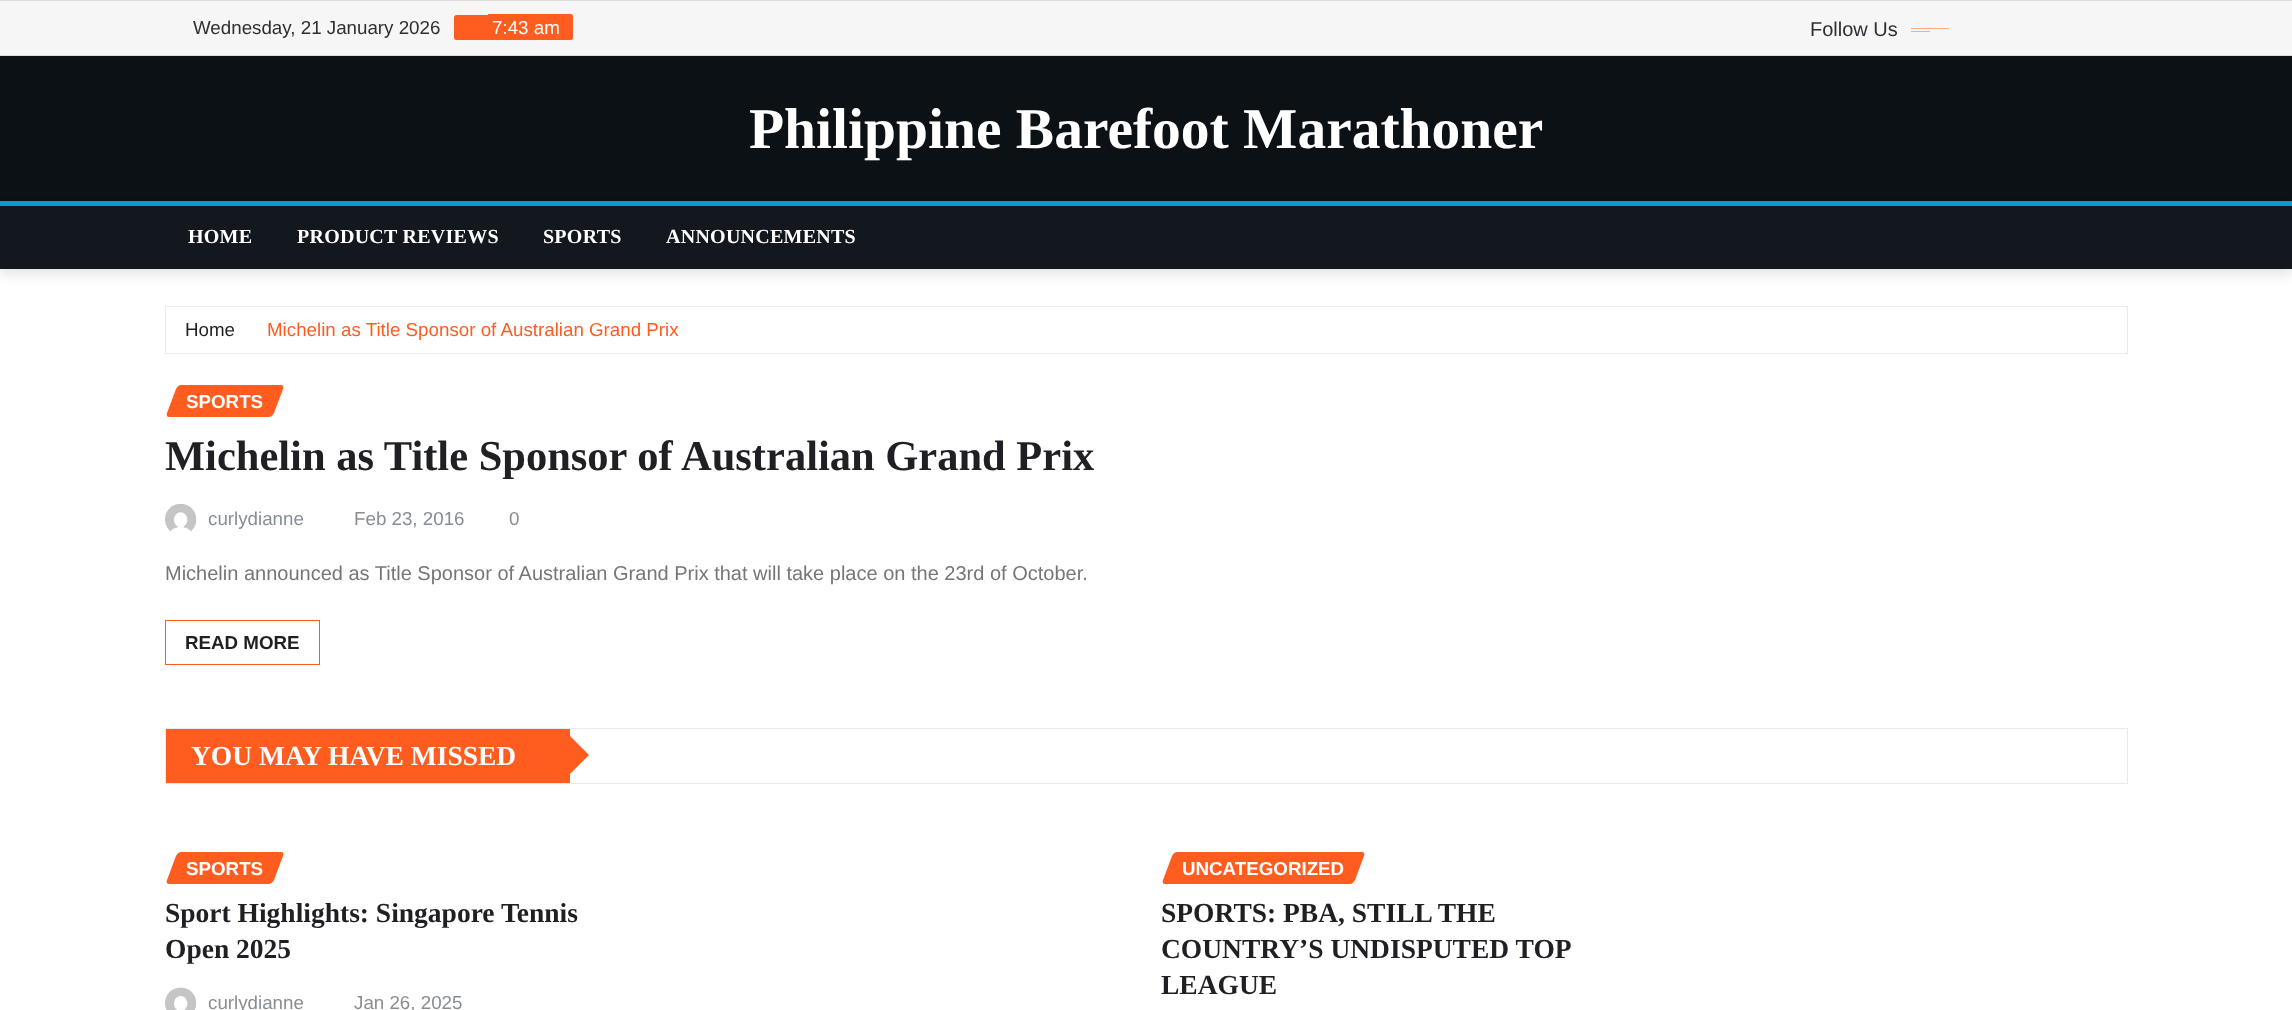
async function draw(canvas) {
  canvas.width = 2292;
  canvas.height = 1010;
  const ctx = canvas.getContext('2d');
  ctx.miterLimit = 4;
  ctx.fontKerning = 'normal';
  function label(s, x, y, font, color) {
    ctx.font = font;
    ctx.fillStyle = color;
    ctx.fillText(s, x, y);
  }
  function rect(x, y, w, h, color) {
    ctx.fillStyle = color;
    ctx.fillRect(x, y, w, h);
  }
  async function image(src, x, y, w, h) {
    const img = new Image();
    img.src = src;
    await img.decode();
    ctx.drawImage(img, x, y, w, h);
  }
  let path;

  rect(0, 0, 2292, 1010, '#fff');
  rect(0, 1, 2292, 54, '#f6f6f6');
  rect(0, 0, 2292, 1, '#ddd');
  rect(0, 55, 2292, 1, '#ddd');
  label('Wednesday, 21 January 2026', 193, 34, '18.75px Liberation Sans', '#2c2f34');
  ctx.fillStyle = '#ff5d20';
  ctx.beginPath();
  ctx.roundRect(488, 14, 85, 26, [0, 2.5, 2.5, 0]);
  ctx.fill();
  label('7:43 am', 492, 34, '18.75px Liberation Sans', '#fff');
  ctx.fillStyle = '#ff5d20';
  ctx.beginPath();
  ctx.roundRect(454, 15, 34, 25, [2.5, 0, 0, 2.5]);
  ctx.fill();
  label('Follow Us', 1810, 36, '20px Liberation Sans', '#2c2f34');
  rect(1911, 28, 38, 1, '#fbaa8b');
  rect(1911, 31, 19, 1, '#fbaa8b');
  rect(0, 56, 2292, 145, '#0c1116');
  label('Philippine Barefoot Marathoner', 749, 148, 'bold 57.5px Liberation Serif', '#fff');
  ctx.fillStyle = '#0000001a';
  ctx.filter = 'blur(6px)';
  ctx.beginPath();
  ctx.rect(0, 208, 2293, 67);
  ctx.fill();
  ctx.filter = 'none';
  rect(0, 206, 2292, 63, '#13171e');
  rect(0, 201, 2292, 5, '#0e98d6');
  ctx.letterSpacing = '0.25px';
  label('HOME', 188, 243, 'bold 20px Liberation Serif', '#fff');
  label('PRODUCT REVIEWS', 297, 243, 'bold 20px Liberation Serif', '#fff');
  label('SPORTS', 543, 243, 'bold 20px Liberation Serif', '#fff');
  label('ANNOUNCEMENTS', 666, 243, 'bold 20px Liberation Serif', '#fff');
  ctx.strokeStyle = '#ebebeb';
  ctx.strokeRect(165.5, 306.5, 1962, 47);
  ctx.letterSpacing = '0px';
  label('Home', 185, 336, '18.75px Liberation Sans', '#1f2024');
  label('Michelin as Title Sponsor of Australian Grand Prix', 267, 336, '18.75px Liberation Sans', '#ff5d20');
  path = new Path2D('M181 385H281C283 385 284 387 283 389L274 413C273 415 271 417 268 417H169C167 417 166 415 167 413L176 389C177 387 179 385 181 385Z');
  ctx.fill(path);
  label('SPORTS', 186, 408, 'bold 18.75px Liberation Sans', '#fff');
  label('Michelin as Title Sponsor of Australian Grand Prix', 165, 470, 'bold 42.5px Liberation Serif', '#1f2024');
  await image('assets/img1.png', 165, 504, 31, 29);
  label('curlydianne', 208, 525, '18.75px Liberation Sans', '#878e94');
  label('Feb 23, 2016', 354, 525, '18.75px Liberation Sans', '#878e94');
  label('0', 509, 525, '18.75px Liberation Sans', '#878e94');
  label('Michelin announced as Title Sponsor of Australian Grand Prix that will take place on the 23rd of October.', 165, 580, '20px Liberation Sans', '#767676');
  ctx.strokeStyle = '#ff5d20';
  ctx.strokeRect(165.5, 620.5, 154, 44);
  label('READ MORE', 185, 649, 'bold 18.75px Liberation Sans', '#1f2024');
  ctx.strokeStyle = '#ebebeb';
  ctx.strokeRect(165.5, 728.5, 1962, 55);
  rect(166, 729, 404, 54, '#ff5d20');
  label('YOU MAY HAVE MISSED', 191, 765, 'bold 27.5px Liberation Serif', '#fff');
  ctx.fillStyle = '#ff5d20';
  path = new Path2D('M570 774V736L589 755Z');
  ctx.fill(path);
  path = new Path2D('M181 852H281C283 852 284 854 283 856L274 880C273 882 271 884 268 884H169C167 884 166 882 167 880L176 856C177 854 179 852 181 852Z');
  ctx.fill(path);
  label('SPORTS', 186, 875, 'bold 18.75px Liberation Sans', '#fff');
  label('Sport Highlights: Singapore Tennis', 165, 922, 'bold 27.5px Liberation Serif', '#1f2024');
  label('Open 2025', 165, 958, 'bold 27.5px Liberation Serif', '#1f2024');
  await image('assets/img2.png', 165, 987, 32, 23);
  label('curlydianne', 208, 1009, '18.75px Liberation Sans', '#878e94');
  label('Jan 26, 2025', 354, 1009, '18.75px Liberation Sans', '#878e94');
  ctx.fillStyle = '#ff5d20';
  path = new Path2D('M1177 852H1362C1364 852 1365 854 1364 856L1355 880C1354 882 1352 884 1350 884H1165C1163 884 1162 882 1163 880L1172 856C1173 854 1175 852 1177 852Z');
  ctx.fill(path);
  label('UNCATEGORIZED', 1182, 875, 'bold 18.75px Liberation Sans', '#fff');
  label('SPORTS: PBA, STILL THE', 1161, 922, 'bold 27.5px Liberation Serif', '#1f2024');
  label('COUNTRY’S UNDISPUTED TOP', 1161, 958, 'bold 27.5px Liberation Serif', '#1f2024');
  label('LEAGUE', 1161, 994, 'bold 27.5px Liberation Serif', '#1f2024');
}

draw(document.querySelector('canvas'));
